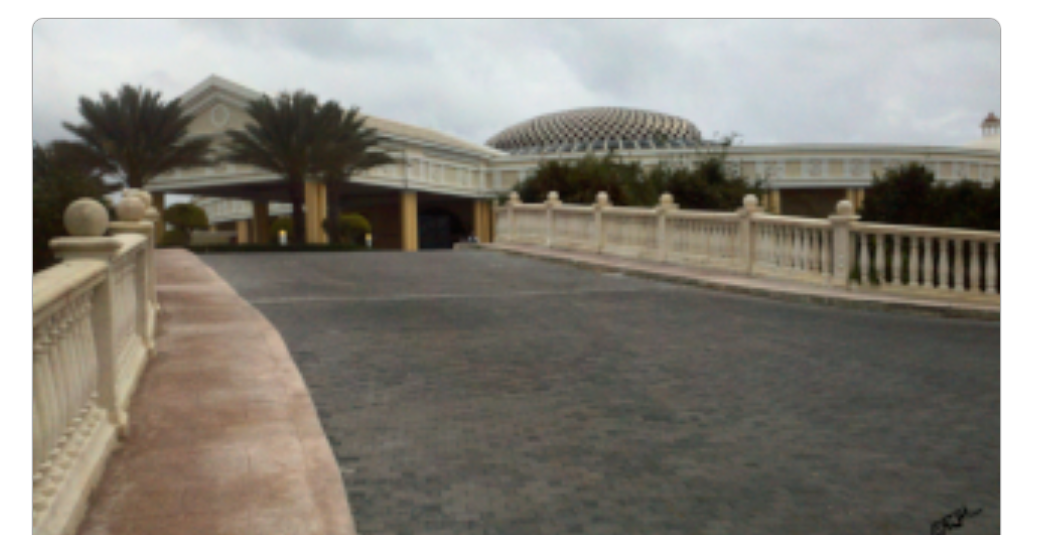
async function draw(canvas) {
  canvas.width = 1041;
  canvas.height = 535;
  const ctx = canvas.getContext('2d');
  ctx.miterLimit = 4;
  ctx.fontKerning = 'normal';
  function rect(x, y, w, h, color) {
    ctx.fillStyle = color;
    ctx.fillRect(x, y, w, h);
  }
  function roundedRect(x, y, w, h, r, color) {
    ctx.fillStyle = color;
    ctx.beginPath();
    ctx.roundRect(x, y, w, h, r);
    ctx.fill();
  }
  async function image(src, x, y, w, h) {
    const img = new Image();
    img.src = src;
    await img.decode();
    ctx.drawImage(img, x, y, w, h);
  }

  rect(0, 0, 1041, 535, '#fff');
  ctx.fillStyle = '#000';
  ctx.filter = 'blur(1px)';
  ctx.beginPath();
  ctx.roundRect(33, 19, 967, 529, 10);
  ctx.fill();
  ctx.filter = 'none';
  roundedRect(33, 19, 967, 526, 10, '#ededed');
  await image('assets/img1.png', 33, 19, 967, 516);
}

draw(document.querySelector('canvas'));
